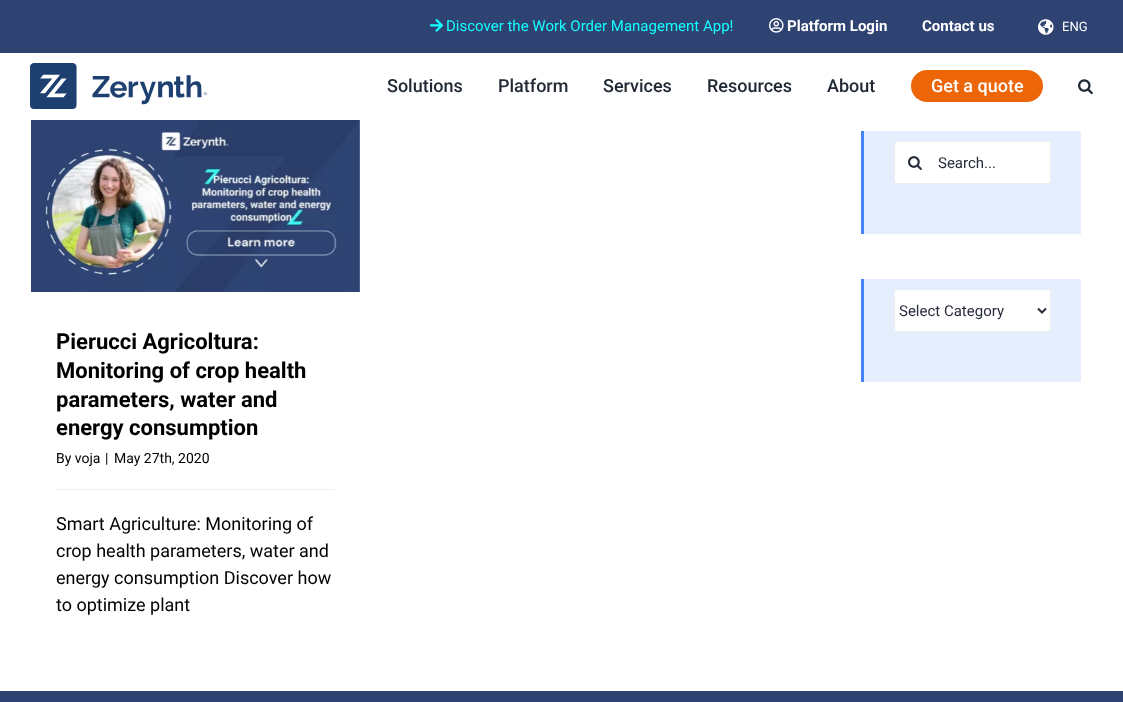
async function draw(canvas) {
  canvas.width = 1123;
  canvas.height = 702;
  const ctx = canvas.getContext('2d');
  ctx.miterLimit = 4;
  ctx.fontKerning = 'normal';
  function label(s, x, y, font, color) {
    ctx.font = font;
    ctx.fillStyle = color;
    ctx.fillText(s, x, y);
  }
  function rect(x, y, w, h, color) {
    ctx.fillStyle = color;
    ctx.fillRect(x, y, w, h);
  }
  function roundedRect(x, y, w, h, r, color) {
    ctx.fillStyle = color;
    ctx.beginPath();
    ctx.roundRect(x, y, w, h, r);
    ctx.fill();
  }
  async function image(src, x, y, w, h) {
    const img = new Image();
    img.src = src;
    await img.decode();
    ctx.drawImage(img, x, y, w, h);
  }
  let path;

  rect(0, 0, 1123, 702, '#fff');
  rect(0, 0, 1123, 53, '#2f4373');
  await image('assets/img1.png', 430, 19, 14, 13);
  label('Discover the Work Order Management App!', 446, 31, '15px Roboto', '#13fdfd');
  await image('assets/img2.png', 769, 18, 15, 15);
  label('Platform Login', 787, 31, 'bold 15px Roboto', '#fff');
  label('Contact us', 922, 31, 'bold 15px Roboto', '#fff');
  await image('assets/img3.png', 1038, 19, 16, 16);
  label('ENG', 1062, 31, '13px Roboto', '#fff');
  await image('assets/img4.png', 30, 63, 178, 46);
  label('Solutions', 387, 92, '500 18px Roboto', '#212934');
  label('Platform', 498, 92, '500 18px Roboto', '#212934');
  label('Services', 603, 92, '500 18px Roboto', '#212934');
  label('Resources', 707, 92, '500 18px Roboto', '#212934');
  label('About', 827, 92, '500 18px Roboto', '#212934');
  roundedRect(911, 70, 132, 32, 16, '#ec6608');
  label('Get a quote', 931, 92, '500 18px Roboto', '#fff');
  await image('assets/img5.png', 1078, 79, 15, 16);
  rect(864, 131, 217, 103, '#e5eefd');
  rect(861, 131, 3, 103, '#4285f4');
  ctx.fillStyle = '#fff';
  ctx.beginPath();
  ctx.roundRect(894.5, 141.5, 156, 42, 2.5);
  ctx.fill();
  ctx.strokeStyle = '#ecefef';
  ctx.stroke();
  await image('assets/img6.png', 908, 156, 14, 14);
  label('Search...', 938, 168, '15px Roboto', '#272d3a');
  rect(864, 279, 217, 103, '#e5eefd');
  rect(861, 279, 3, 103, '#4285f4');
  ctx.fillStyle = '#fff';
  ctx.beginPath();
  ctx.roundRect(894.5, 289.5, 156, 42, 2.5);
  ctx.fill();
  ctx.stroke();
  path = new Path2D('M1038 308.5L1042 312.5L1046 308.5');
  ctx.strokeStyle = '#272d3a';
  ctx.lineWidth = 2;
  ctx.stroke(path);
  label('Select Category', 899, 316, '15px Roboto', '#272d3a');
  await image('assets/img7.png', 31, 120, 329, 172);
  label('Pierucci Agricoltura:', 56, 349, 'bold 22px Roboto', '#000');
  label('Monitoring of crop health', 56, 378, 'bold 22px Roboto', '#000');
  label('parameters, water and', 56, 407, 'bold 22px Roboto', '#000');
  label('energy consumption', 56, 435, 'bold 22px Roboto', '#000');
  label('By voja', 56, 463, '14px Roboto', '#000');
  label('|', 105, 463, '14px Roboto', '#000');
  label('May 27th, 2020', 114, 463, '14px Roboto', '#000');
  rect(56, 489, 279, 1, '#ecefef');
  label('Smart Agriculture: Monitoring of', 56, 530, '18px Roboto', '#000');
  label('crop health parameters, water and', 56, 557, '18px Roboto', '#000');
  label('energy consumption Discover how', 56, 584, '18px Roboto', '#000');
  label('to optimize plant', 56, 611, '18px Roboto', '#000');
  rect(0, 691, 1123, 11, '#2f4373');
}

draw(document.querySelector('canvas'));
